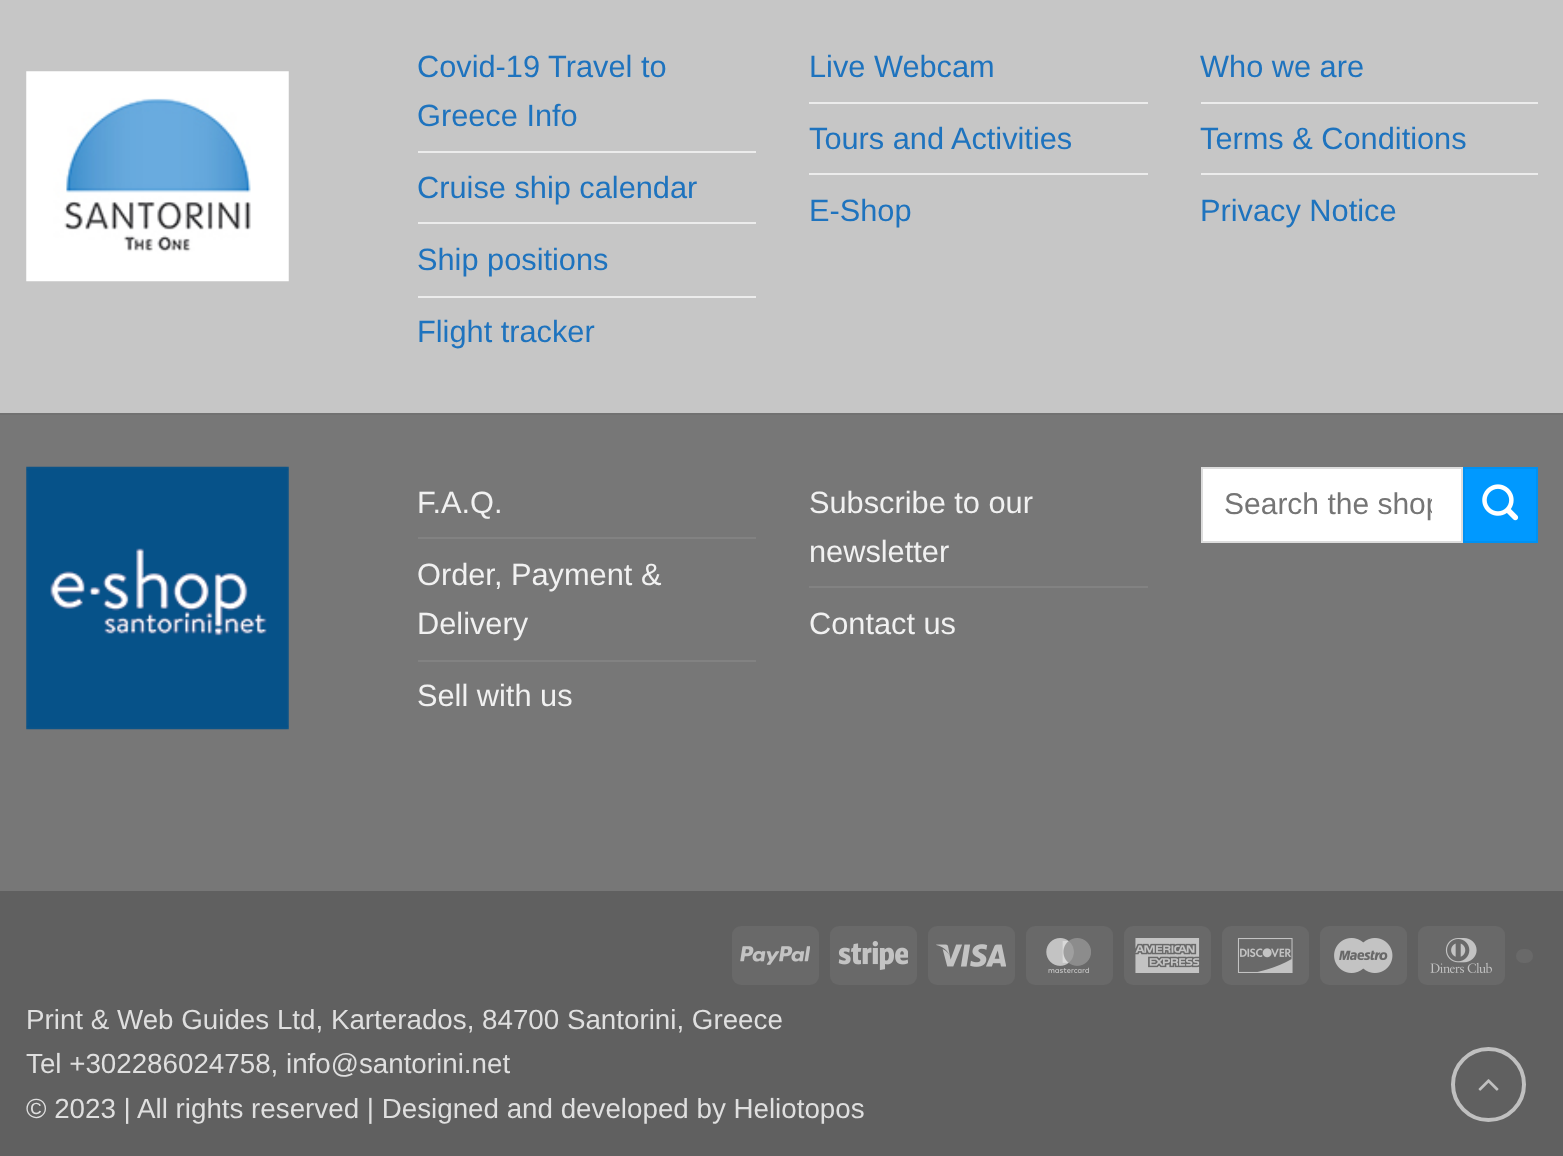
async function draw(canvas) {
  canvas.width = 1563;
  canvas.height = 1156;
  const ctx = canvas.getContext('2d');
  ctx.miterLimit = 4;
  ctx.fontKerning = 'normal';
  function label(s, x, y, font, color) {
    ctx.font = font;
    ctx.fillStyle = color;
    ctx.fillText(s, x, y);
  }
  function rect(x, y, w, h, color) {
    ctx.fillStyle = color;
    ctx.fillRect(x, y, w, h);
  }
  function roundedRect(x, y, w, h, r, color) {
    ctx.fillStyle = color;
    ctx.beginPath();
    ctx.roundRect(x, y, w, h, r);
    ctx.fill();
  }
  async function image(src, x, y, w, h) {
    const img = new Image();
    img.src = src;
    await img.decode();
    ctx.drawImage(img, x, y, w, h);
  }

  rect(0, 0, 1563, 1156, '#c6c6c6');
  await image('assets/img1.png', 26, 71, 263, 211);
  label('Covid-19 Travel to', 417, 77, '30.75px Liberation Sans', '#1e73be');
  label('Greece Info', 417, 126, '30.75px Liberation Sans', '#1e73be');
  rect(418, 151, 338, 2, '#ececec');
  label('Cruise ship calendar', 417, 198, '30.75px Liberation Sans', '#1e73be');
  rect(418, 222, 338, 2, '#ececec');
  label('Ship positions', 417, 270, '30.75px Liberation Sans', '#1e73be');
  rect(418, 296, 338, 2, '#ececec');
  label('Flight tracker', 417, 342, '30.75px Liberation Sans', '#1e73be');
  label('Live Webcam', 809, 77, '30.75px Liberation Sans', '#1e73be');
  rect(809, 102, 339, 2, '#ececec');
  label('Tours and Activities', 809, 149, '30.75px Liberation Sans', '#1e73be');
  rect(809, 173, 339, 2, '#ececec');
  label('E-Shop', 809, 221, '30.75px Liberation Sans', '#1e73be');
  label('Who we are', 1200, 77, '30.75px Liberation Sans', '#1e73be');
  rect(1201, 102, 337, 2, '#ececec');
  label('Terms & Conditions', 1200, 149, '30.75px Liberation Sans', '#1e73be');
  rect(1201, 173, 337, 2, '#ececec');
  label('Privacy Notice', 1200, 221, '30.75px Liberation Sans', '#1e73be');
  rect(0, 415, 1563, 476, '#777');
  rect(0, 413, 1563, 2, '#717171');
  await image('assets/img2.png', 26, 466, 263, 264);
  label('F.A.Q.', 417, 513, '30.75px Liberation Sans', '#f1f1f1');
  rect(418, 537, 338, 2, '#828282');
  label('Order, Payment &', 417, 585, '30.75px Liberation Sans', '#f1f1f1');
  label('Delivery', 417, 634, '30.75px Liberation Sans', '#f1f1f1');
  rect(418, 660, 338, 2, '#828282');
  label('Sell with us', 417, 706, '30.75px Liberation Sans', '#f1f1f1');
  label('Subscribe to our', 809, 513, '30.75px Liberation Sans', '#f1f1f1');
  label('newsletter', 809, 562, '30.75px Liberation Sans', '#f1f1f1');
  rect(809, 586, 339, 2, '#828282');
  label('Contact us', 809, 634, '30.75px Liberation Sans', '#f1f1f1');
  ctx.fillStyle = '#fff';
  ctx.beginPath();
  ctx.rect(1202, 468, 260, 74);
  ctx.fill();
  ctx.strokeStyle = '#ddd';
  ctx.lineWidth = 2;
  ctx.stroke();
  ctx.save();
  ctx.beginPath();
  ctx.rect(1223, 488, 209, 35);
  ctx.clip();
  label('Search the shop', 1224, 514, '30px Liberation Sans', '#757575');
  ctx.restore();
  ctx.fillStyle = '#09f';
  ctx.beginPath();
  ctx.rect(1464, 468, 73, 74);
  ctx.fill();
  ctx.strokeStyle = '#0091f2';
  ctx.stroke();
  await image('assets/img3.png', 1482, 484, 37, 37);
  rect(0, 891, 1563, 265, '#606060');
  roundedRect(732, 926, 87, 59, 9, '#696969');
  await image('assets/img4.png', 740, 946, 70, 19);
  roundedRect(830, 926, 87, 59, 9, '#696969');
  await image('assets/img5.png', 838, 941, 70, 29);
  roundedRect(928, 926, 87, 59, 9, '#696969');
  await image('assets/img6.png', 936, 944, 70, 23);
  roundedRect(1026, 926, 87, 59, 9, '#696969');
  await image('assets/img7.png', 1046, 938, 45, 35);
  roundedRect(1124, 926, 87, 59, 9, '#696969');
  await image('assets/img8.png', 1135, 938, 65, 35);
  roundedRect(1222, 926, 87, 59, 9, '#696969');
  await image('assets/img9.png', 1237, 938, 56, 35);
  roundedRect(1320, 926, 87, 59, 9, '#696969');
  await image('assets/img10.png', 1334, 938, 59, 35);
  roundedRect(1418, 926, 87, 59, 9, '#696969');
  await image('assets/img11.png', 1430, 938, 62, 35);
  roundedRect(1516, 949, 17, 14, 7, '#696969');
  label('Print & Web Guides Ltd, Karterados, 84700 Santorini, Greece', 26, 1029, '27.75px Liberation Sans', '#dfdfdf');
  label('Tel +302286024758, info@santorini.net', 26, 1073, '27.75px Liberation Sans', '#dfdfdf');
  label('© 2023 |', 26, 1118, '27.75px Liberation Sans', '#dfdfdf');
  label('All rights reserved | Designed and developed by Heliotopos', 137, 1118, '27.75px Liberation Sans', '#dfdfdf');
  ctx.beginPath();
  ctx.arc(1488.5, 1084.5, 35.5, 0, 2 * Math.PI);
  ctx.strokeStyle = '#c0c0c0';
  ctx.lineWidth = 4;
  ctx.stroke();
  await image('assets/img12.png', 1478, 1079, 21, 12);
}

draw(document.querySelector('canvas'));
